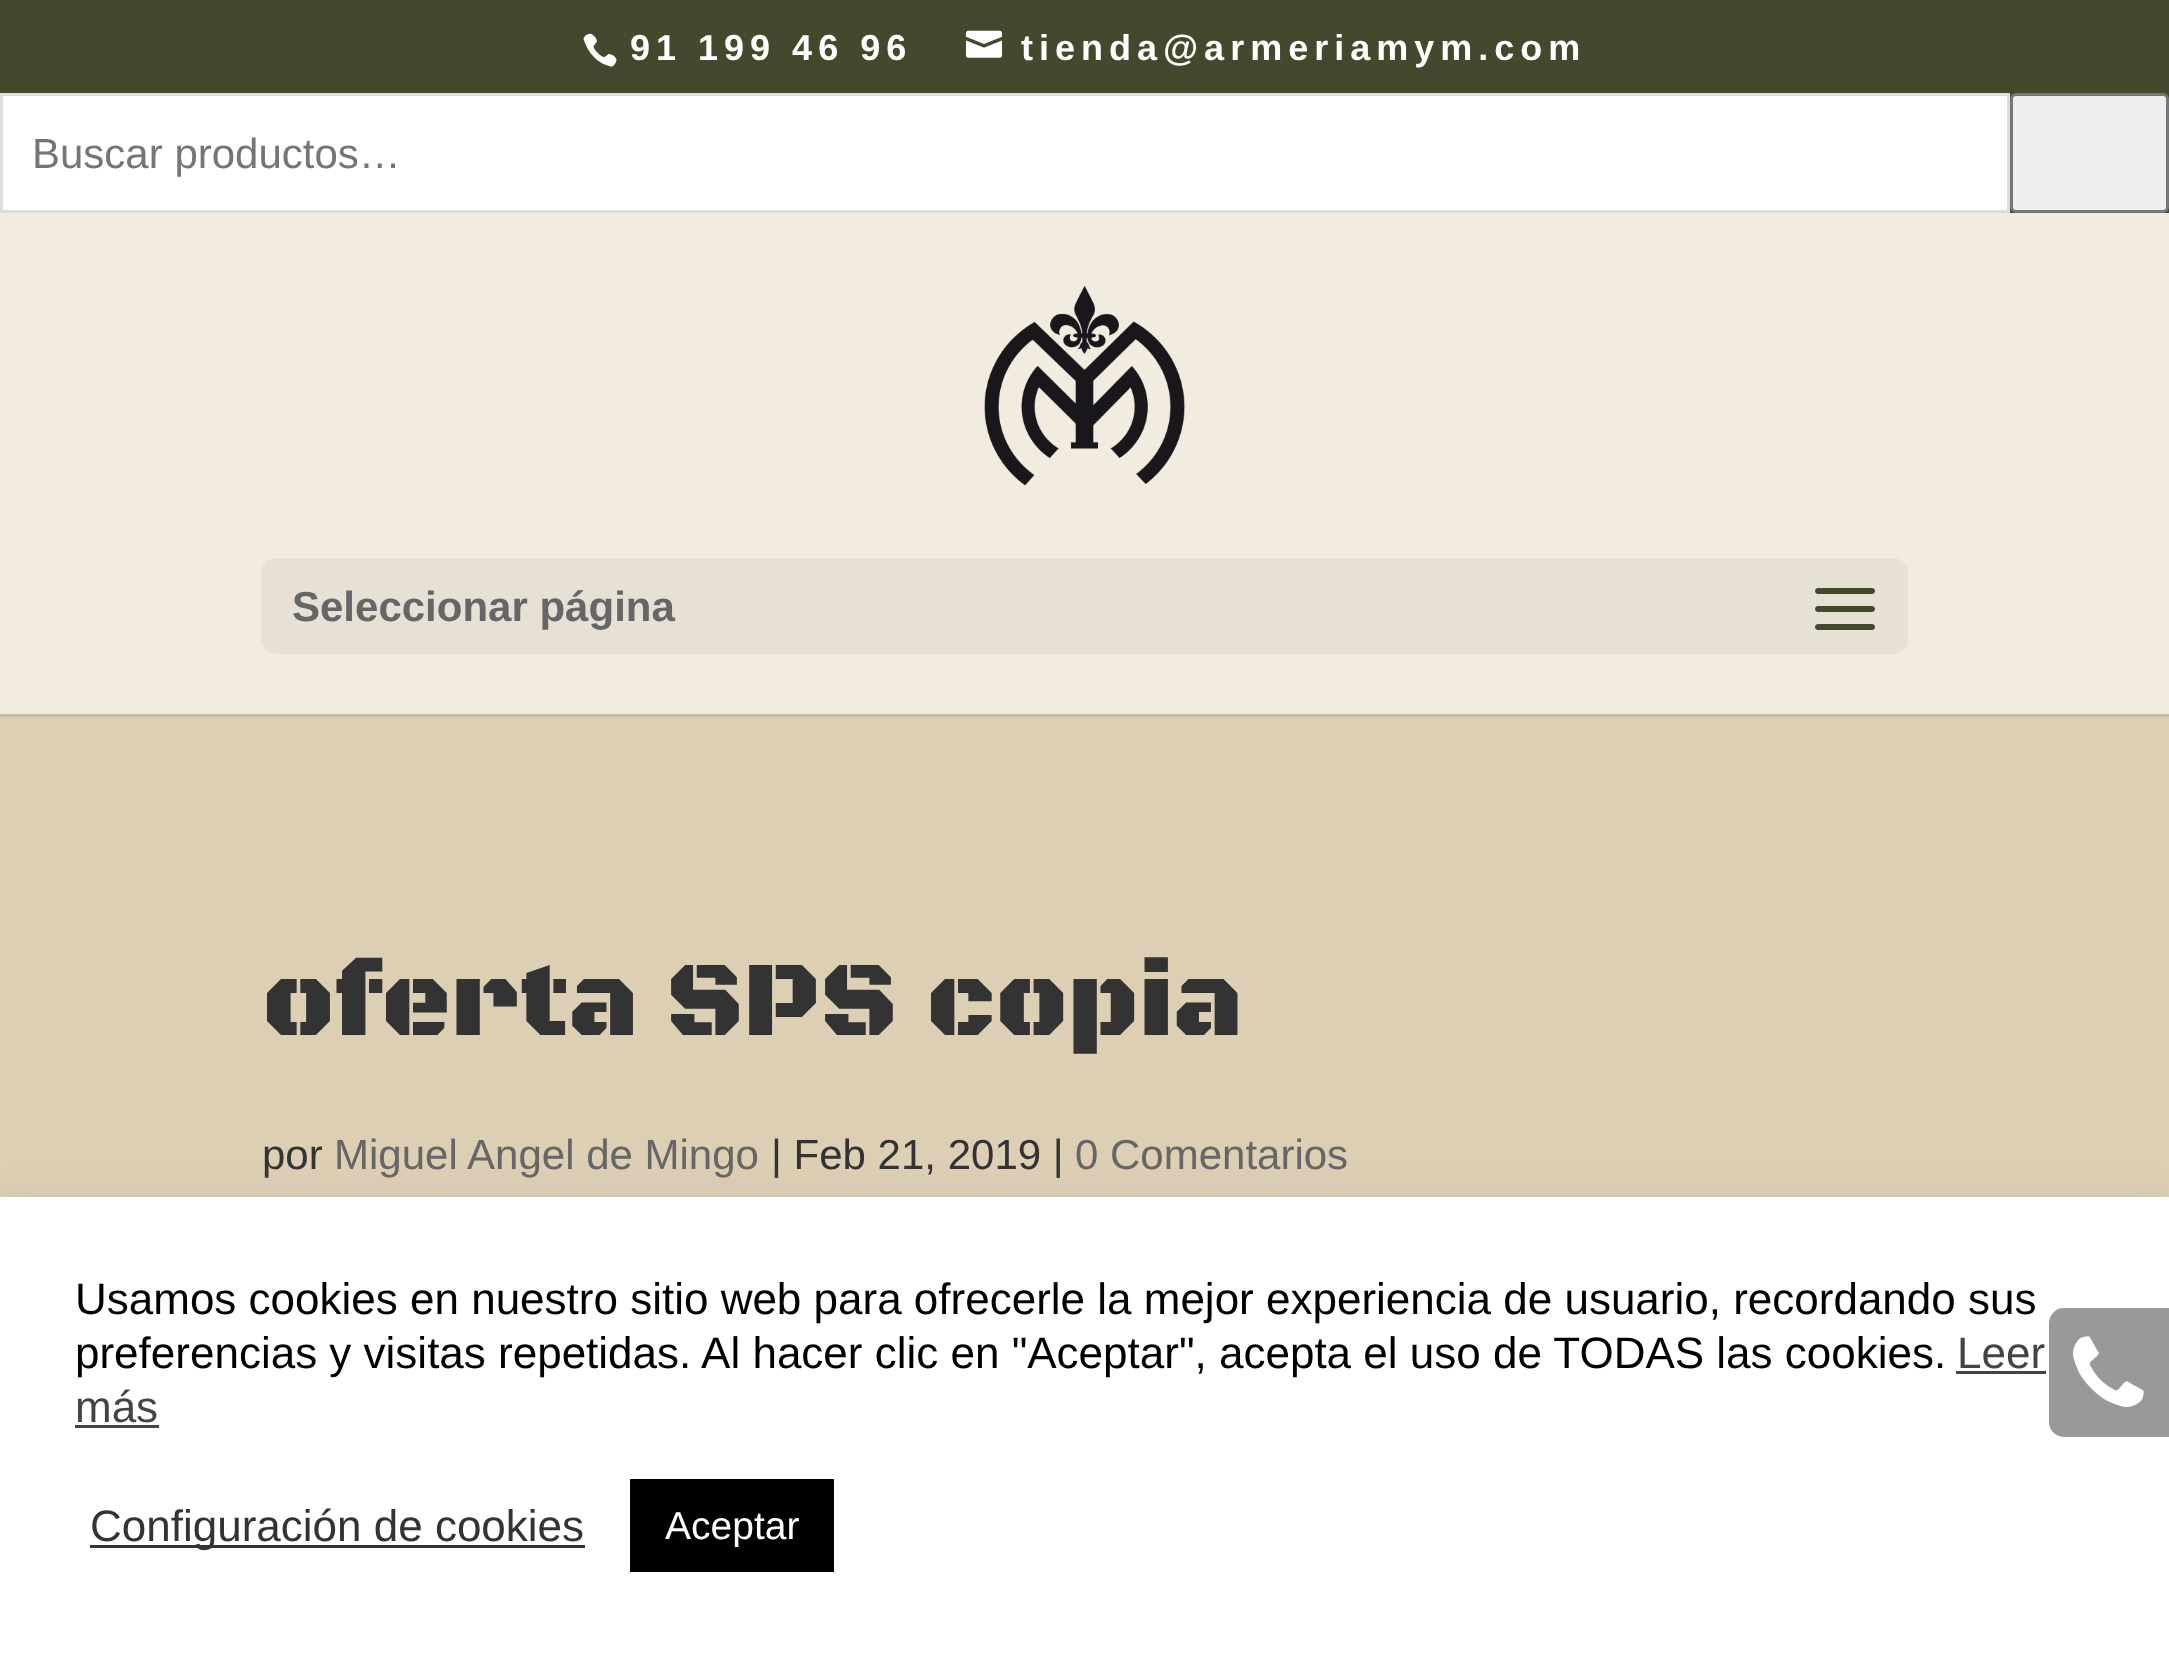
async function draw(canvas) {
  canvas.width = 2169;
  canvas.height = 1661;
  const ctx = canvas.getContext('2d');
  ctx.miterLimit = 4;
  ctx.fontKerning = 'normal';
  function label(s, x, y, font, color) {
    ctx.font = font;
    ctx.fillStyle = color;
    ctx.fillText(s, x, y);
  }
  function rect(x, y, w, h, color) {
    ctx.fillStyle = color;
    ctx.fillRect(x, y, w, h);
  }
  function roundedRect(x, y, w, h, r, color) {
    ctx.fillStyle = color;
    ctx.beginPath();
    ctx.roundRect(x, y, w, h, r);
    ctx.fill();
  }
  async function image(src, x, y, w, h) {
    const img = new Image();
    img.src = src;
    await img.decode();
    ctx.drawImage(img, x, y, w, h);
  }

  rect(0, 0, 2169, 1661, '#ddcfb3');
  rect(0, 0, 2169, 213, '#44482d');
  await image('assets/img1.png', 583, 33, 34, 34);
  ctx.letterSpacing = '6px';
  label('91 199 46 96', 630, 60, 'bold 36px Liberation Sans', '#fff');
  await image('assets/img2.png', 966, 30, 36, 28);
  label('tienda@armeriamym.com', 1021, 60, 'bold 36px Liberation Sans', '#fff');
  ctx.beginPath();
  ctx.rect(1.5, 94.5, 2007, 117);
  ctx.fill();
  ctx.strokeStyle = '#ddd';
  ctx.lineWidth = 3;
  ctx.stroke();
  ctx.letterSpacing = '0px';
  label('Buscar productos…', 32, 168, '42px Liberation Sans', '#757575');
  ctx.fillStyle = '#efefef';
  ctx.beginPath();
  ctx.roundRect(2011.5, 94.5, 156, 117, 4.5);
  ctx.fill();
  ctx.strokeStyle = '#767676';
  ctx.stroke();
  rect(0, 714, 2169, 3, '#c7baa1');
  rect(0, 213, 2169, 501, '#f2ece0');
  await image('assets/img3.png', 984, 285, 201, 201);
  roundedRect(261, 558, 1647, 96, 15, '#e6e0d5');
  label('Seleccionar página', 292, 621, 'bold 42px Liberation Sans', '#666');
  await image('assets/img4.png', 1815, 588, 60, 42);
  label('oferta SPS copia', 262, 1035, '900 108px Black Ops One', '#333');
  label('por', 262, 1169, '42px Liberation Sans', '#333');
  label('Miguel Angel de Mingo', 334, 1169, '42px Liberation Sans', '#666');
  label('| Feb 21, 2019 |', 771, 1169, '42px Liberation Sans', '#333');
  label('0 Comentarios', 1075, 1169, '42px Liberation Sans', '#666');
  ctx.fillStyle = '#acabab4d';
  ctx.filter = 'blur(15px)';
  ctx.beginPath();
  ctx.rect(0, 1194, 2169, 465);
  ctx.fill();
  ctx.filter = 'none';
  rect(0, 1197, 2169, 464, '#fff');
  ctx.fillStyle = '#999';
  ctx.beginPath();
  ctx.roundRect(2049, 1308, 120, 129, [15, 0, 0, 15]);
  ctx.fill();
  await image('assets/img5.png', 2073, 1336, 71, 71);
  label('Usamos cookies en nuestro sitio web para ofrecerle la mejor experiencia de usuario, recordando sus', 75, 1314, '44px Liberation Sans', '#000');
  label('preferencias y visitas repetidas. Al hacer clic en "Aceptar", acepta el uso de TODAS las cookies.', 75, 1368, '44px Liberation Sans', '#000');
  label('Leer', 1957, 1368, '44px Liberation Sans', '#444');
  rect(1956, 1371, 90, 3, '#444');
  label('más', 75, 1422, '44px Liberation Sans', '#444');
  rect(75, 1425, 84, 3, '#444');
  rect(90, 1545, 495, 3, '#333');
  label('Configuración de cookies', 90, 1541, '44px Liberation Sans', '#333');
  rect(630, 1479, 204, 93, '#000');
  label('Aceptar', 665, 1539, '39px Liberation Sans', '#fff');
}

draw(document.querySelector('canvas'));
